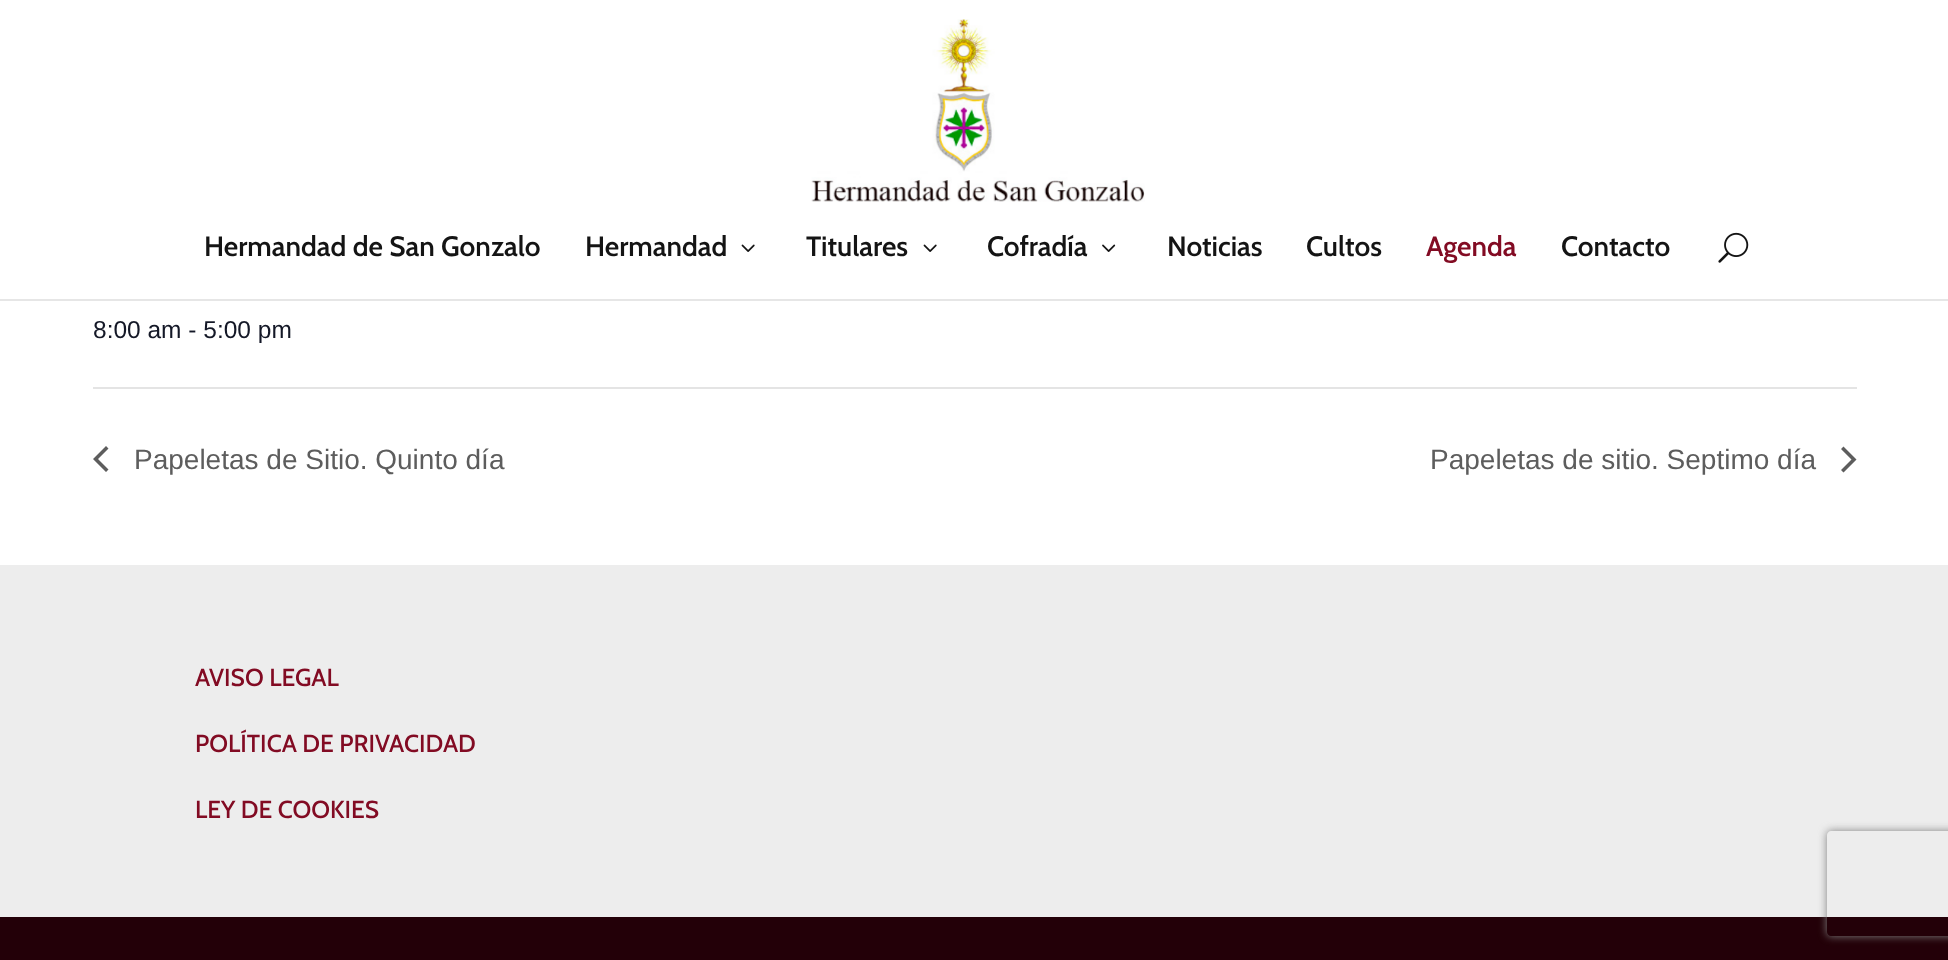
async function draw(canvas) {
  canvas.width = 1948;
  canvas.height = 960;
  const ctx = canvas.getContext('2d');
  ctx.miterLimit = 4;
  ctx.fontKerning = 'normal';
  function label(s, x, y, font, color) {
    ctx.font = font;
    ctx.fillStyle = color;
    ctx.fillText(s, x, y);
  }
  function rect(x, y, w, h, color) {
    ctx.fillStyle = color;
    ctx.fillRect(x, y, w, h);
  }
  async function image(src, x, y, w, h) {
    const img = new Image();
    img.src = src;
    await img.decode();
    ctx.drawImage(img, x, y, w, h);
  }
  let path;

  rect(0, 0, 1948, 960, '#fff');
  ctx.fillStyle = '#e6e6e6';
  path = new Path2D('M0 299V301H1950V2V299Z');
  ctx.fill(path);
  await image('assets/img1.png', 811, 19, 334, 183);
  label('Hermandad de San Gonzalo', 204, 256, '600 28px Cabin', '#141414');
  label('Hermandad', 585, 256, '600 28px Cabin', '#141414');
  await image('assets/img2.png', 741, 244, 14, 8);
  label('Titulares', 806, 256, '600 28px Cabin', '#141414');
  await image('assets/img2.png', 923, 244, 14, 8);
  label('Cofradía', 987, 256, '600 28px Cabin', '#141414');
  await image('assets/img3.png', 1102, 244, 14, 8);
  label('Noticias', 1167, 256, '600 28px Cabin', '#141414');
  label('Cultos', 1306, 256, '600 28px Cabin', '#141414');
  label('Agenda', 1426, 256, '600 28px Cabin', '#820b23');
  label('Contacto', 1561, 256, '600 28px Cabin', '#141414');
  await image('assets/img4.png', 1718, 232, 31, 31);
  label('8:00 am - 5:00 pm', 93, 338, '24.5px Liberation Sans', '#141827');
  rect(93, 387, 1764, 2, '#e4e4e4');
  ctx.fillStyle = '#5d5d5d';
  path = new Path2D('M108.5 469.5L106 472L93 459L106 446L108.5 448.5L98 459Z');
  ctx.fill(path);
  label('Papeletas de Sitio. Quinto día', 134, 469, '28px Liberation Sans', '#5d5d5d');
  label('Papeletas de sitio. Septimo día', 1430, 469, '28px Liberation Sans', '#5d5d5d');
  path = new Path2D('M1841 449L1843.5 446.5L1856.5 459.5L1843.5 472.5L1841 470L1851.5 459.5Z');
  ctx.fill(path);
  rect(0, 565, 1948, 352, '#ededed');
  label('AVISO LEGAL', 195, 686, '500 24.5px Cabin', '#820b23');
  label('POLÍTICA DE PRIVACIDAD', 195, 752, '500 24.5px Cabin', '#820b23');
  label('LEY DE COOKIES', 195, 818, '500 24.5px Cabin', '#820b23');
  rect(0, 917, 1948, 43, '#230008');
  ctx.save();
  path = new Path2D('M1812 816H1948V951H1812ZM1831 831H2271C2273 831 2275 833 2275 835V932C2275 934 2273 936 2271 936H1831C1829 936 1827 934 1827 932V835C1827 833 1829 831 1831 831Z');
  ctx.clip(path, 'evenodd');
  ctx.fillStyle = '#808080';
  ctx.filter = 'blur(4.5px)';
  ctx.beginPath();
  ctx.roundRect(1827, 831, 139, 105, 4);
  ctx.fill();
  ctx.filter = 'none';
  ctx.restore();
}

draw(document.querySelector('canvas'));
